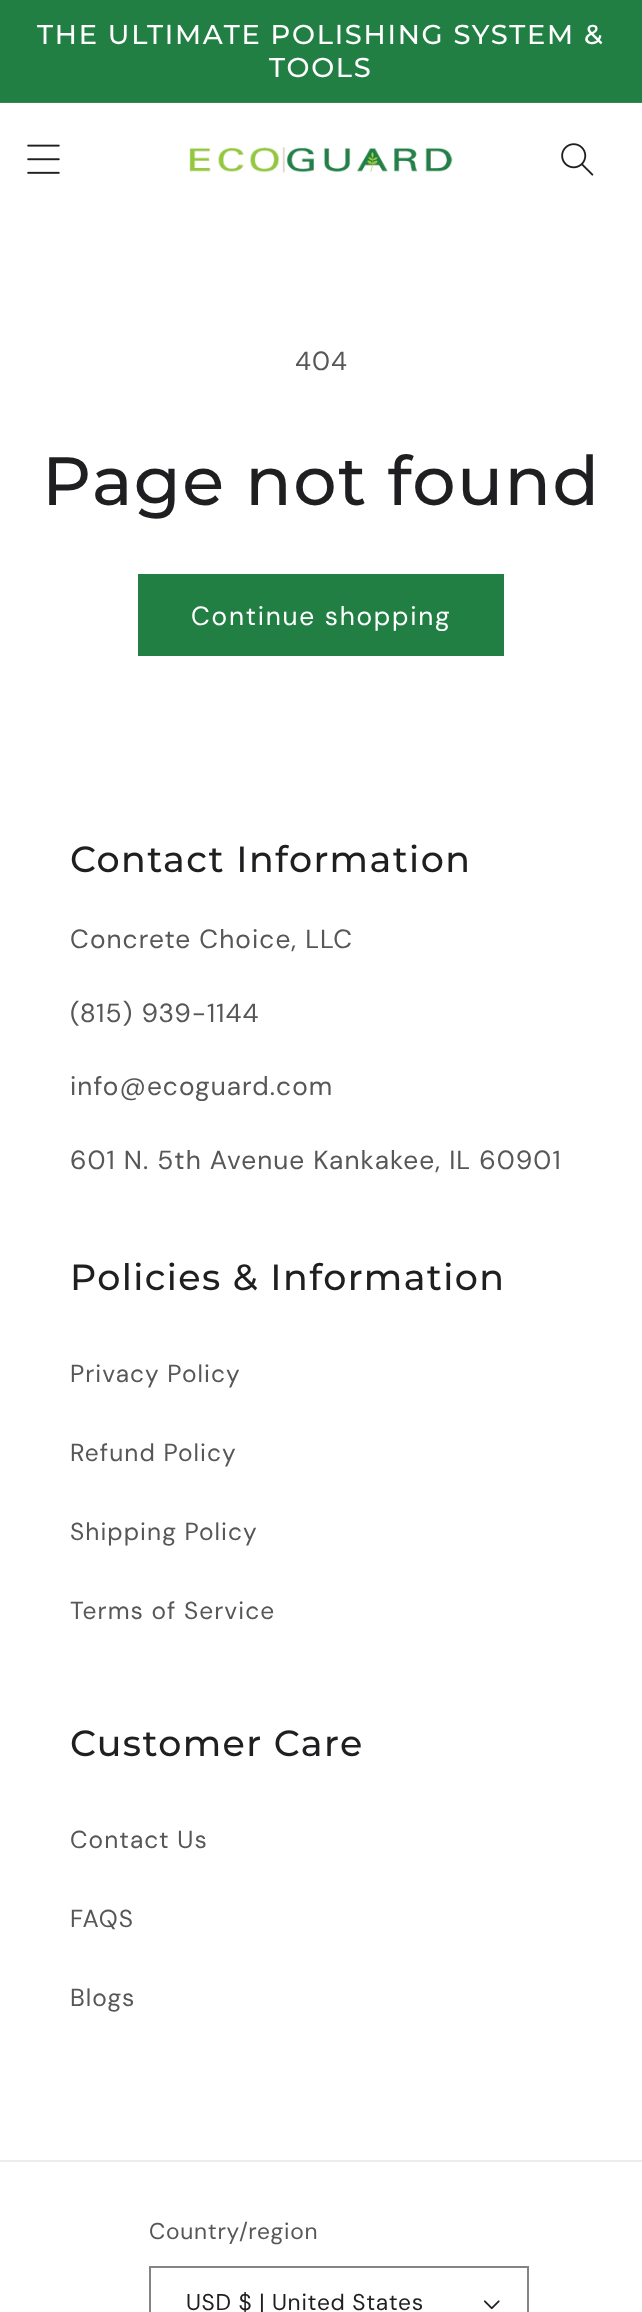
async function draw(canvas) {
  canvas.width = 642;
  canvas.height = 2312;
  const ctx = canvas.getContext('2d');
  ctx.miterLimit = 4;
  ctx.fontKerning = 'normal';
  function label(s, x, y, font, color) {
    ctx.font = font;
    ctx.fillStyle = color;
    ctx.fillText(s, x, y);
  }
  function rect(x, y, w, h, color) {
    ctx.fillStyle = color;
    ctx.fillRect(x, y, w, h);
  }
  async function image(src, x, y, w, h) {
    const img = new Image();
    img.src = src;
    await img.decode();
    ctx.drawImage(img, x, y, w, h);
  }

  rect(0, 0, 642, 2312, '#fff');
  rect(0, 0, 642, 102, '#217f44');
  rect(0, 102, 642, 1, '#338953');
  ctx.letterSpacing = '1.75px';
  label('THE ULTIMATE POLISHING SYSTEM &', 37, 44, '500 27.3px Montserrat', '#fff');
  label('TOOLS', 269, 77, '500 27.3px Montserrat', '#fff');
  await image('assets/img1.png', 27, 144, 33, 30);
  await image('assets/img2.png', 189, 147, 264, 26);
  await image('assets/img3.png', 561, 143, 33, 33);
  ctx.letterSpacing = '1.05px';
  label('404', 295, 370, '26.25px DM Sans', '#575759');
  ctx.letterSpacing = '1.4px';
  label('Page not found', 42, 505, '500 68.25px Montserrat', '#1f1f21');
  rect(138, 574, 366, 82, '#217f44');
  ctx.letterSpacing = '1.75px';
  label('Continue shopping', 191, 625, '26.25px DM Sans', '#fff');
  ctx.letterSpacing = '1.4px';
  label('Contact Information', 70, 872, '500 36.4px Montserrat', '#1f1f21');
  ctx.letterSpacing = '1.05px';
  label('Concrete Choice, LLC', 70, 948, '26.25px DM Sans', '#575759');
  label('(815) 939-1144', 70, 1022, '26.25px DM Sans', '#575759');
  label('info@ecoguard.com', 70, 1095, '26.25px DM Sans', '#575759');
  label('601 N. 5th Avenue Kankakee, IL 60901', 70, 1169, '26.25px DM Sans', '#575759');
  ctx.letterSpacing = '1.4px';
  label('Policies & Information', 70, 1290, '500 36.4px Montserrat', '#1f1f21');
  ctx.letterSpacing = '1.05px';
  label('Privacy Policy', 70, 1382, '24.5px "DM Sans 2"', '#575759');
  label('Refund Policy', 70, 1461, '24.5px "DM Sans 2"', '#575759');
  label('Shipping Policy', 70, 1540, '24.5px "DM Sans 2"', '#575759');
  label('Terms of Service', 70, 1619, '24.5px "DM Sans 2"', '#575759');
  ctx.letterSpacing = '1.4px';
  label('Customer Care', 70, 1756, '500 36.4px Montserrat', '#1f1f21');
  ctx.letterSpacing = '1.05px';
  label('Contact Us', 70, 1848, '24.5px "DM Sans 2"', '#575759');
  label('FAQS', 70, 1927, '24.5px "DM Sans 2"', '#575759');
  label('Blogs', 70, 2006, '24.5px "DM Sans 2"', '#575759');
  rect(0, 2160, 642, 2, '#ededed');
  ctx.letterSpacing = '0.7px';
  label('Country/region', 149, 2239, '22.75px "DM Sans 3"', '#575759');
  await image('assets/img4.png', 483, 2300, 17, 10);
  ctx.strokeStyle = '#848485';
  ctx.lineWidth = 2;
  ctx.strokeRect(150, 2267, 378, 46);
  label('USD $ | United States', 186, 2310, '22.75px "DM Sans 3"', '#1f1f21');
}

draw(document.querySelector('canvas'));
